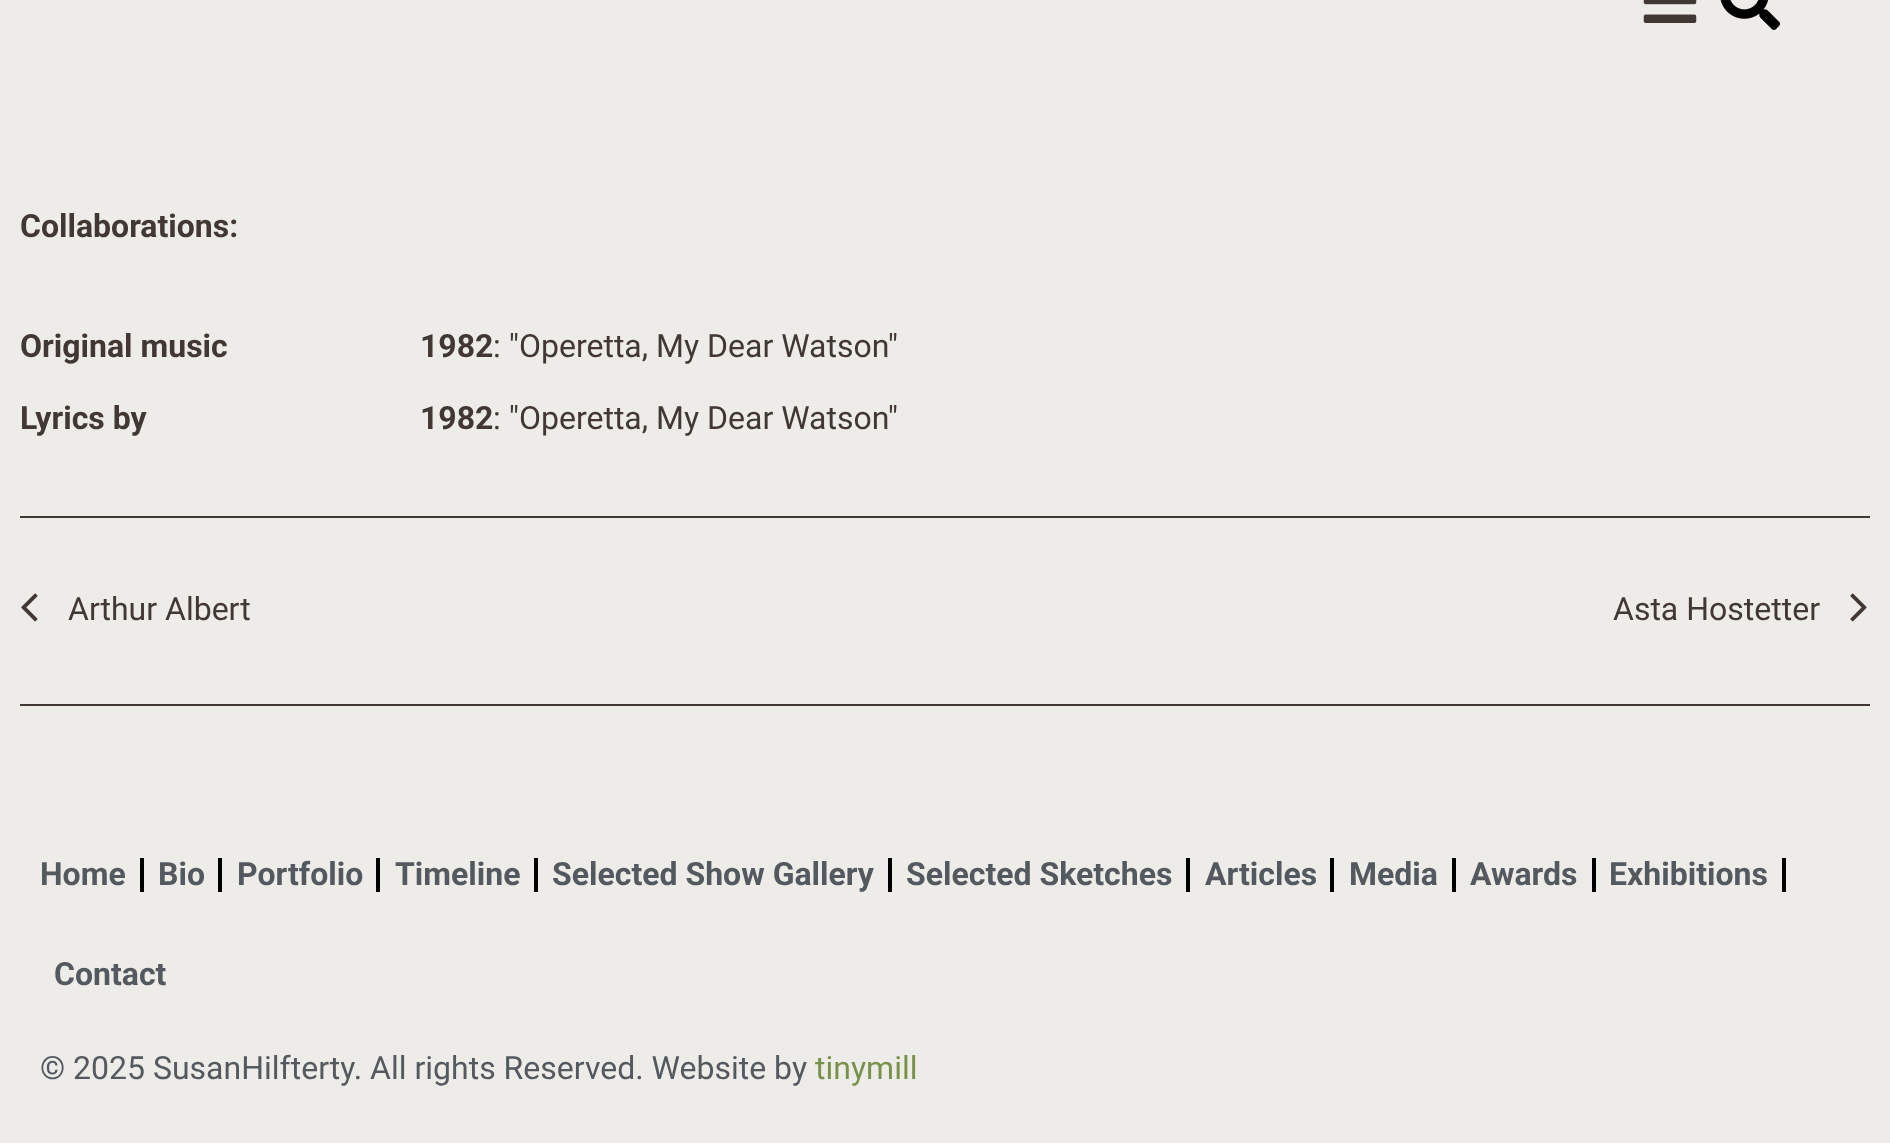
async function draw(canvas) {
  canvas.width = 1890;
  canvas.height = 1143;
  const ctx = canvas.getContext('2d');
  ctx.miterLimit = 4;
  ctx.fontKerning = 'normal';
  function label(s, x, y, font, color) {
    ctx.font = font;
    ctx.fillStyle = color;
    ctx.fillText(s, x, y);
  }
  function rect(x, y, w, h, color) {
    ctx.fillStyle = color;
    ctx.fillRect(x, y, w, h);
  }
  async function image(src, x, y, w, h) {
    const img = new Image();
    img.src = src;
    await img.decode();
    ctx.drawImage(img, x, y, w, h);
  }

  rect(0, 0, 1890, 1143, '#eeece8');
  await image('assets/img1.png', 1643, 0, 54, 23);
  await image('assets/img2.png', 1720, 0, 60, 30);
  label('Collaborations:', 20, 237, 'bold 32px Roboto', '#413833');
  label('Original music', 20, 357, 'bold 32px Roboto', '#413833');
  label('1982', 420, 357, 'bold 32px Roboto', '#413833');
  label(': "Operetta, My Dear Watson"', 493, 357, '32px Roboto', '#413833');
  label('Lyrics by', 20, 429, 'bold 32px Roboto', '#413833');
  label('1982', 420, 429, 'bold 32px Roboto', '#413833');
  label(': "Operetta, My Dear Watson"', 493, 429, '32px Roboto', '#413833');
  rect(20, 516, 1850, 2, '#413833');
  rect(20, 704, 1850, 2, '#413833');
  await image('assets/img3.png', 21, 593, 17, 29);
  label('Arthur Albert', 68, 620, '32px Roboto', '#413833');
  label('Asta Hostetter', 1613, 620, '32px Roboto', '#413833');
  await image('assets/img4.png', 1850, 593, 17, 29);
  label('Home', 40, 885, 'bold 32px Roboto', '#54595f');
  rect(140, 858, 4, 34, '#000');
  label('Bio', 158, 885, 'bold 32px Roboto', '#54595f');
  rect(218, 858, 4, 34, '#000');
  label('Portfolio', 237, 885, 'bold 32px Roboto', '#54595f');
  rect(376, 858, 4, 34, '#000');
  label('Timeline', 395, 885, 'bold 32px Roboto', '#54595f');
  rect(534, 858, 4, 34, '#000');
  label('Selected Show Gallery', 552, 885, 'bold 32px Roboto', '#54595f');
  rect(888, 858, 4, 34, '#000');
  label('Selected Sketches', 906, 885, 'bold 32px Roboto', '#54595f');
  rect(1186, 858, 4, 34, '#000');
  label('Articles', 1205, 885, 'bold 32px Roboto', '#54595f');
  rect(1330, 858, 4, 34, '#000');
  label('Media', 1349, 885, 'bold 32px Roboto', '#54595f');
  rect(1452, 858, 4, 34, '#000');
  label('Awards', 1470, 885, 'bold 32px Roboto', '#54595f');
  rect(1592, 858, 4, 34, '#000');
  label('Exhibitions', 1609, 885, 'bold 32px Roboto', '#54595f');
  rect(1782, 858, 4, 34, '#000');
  label('Contact', 54, 985, 'bold 32px Roboto', '#54595f');
  label('© 2025 SusanHilfterty. All rights Reserved. Website by', 40, 1079, '32px Roboto', '#54595f');
  label('tinymill', 815, 1079, '32px Roboto', '#78924b');
}

draw(document.querySelector('canvas'));
